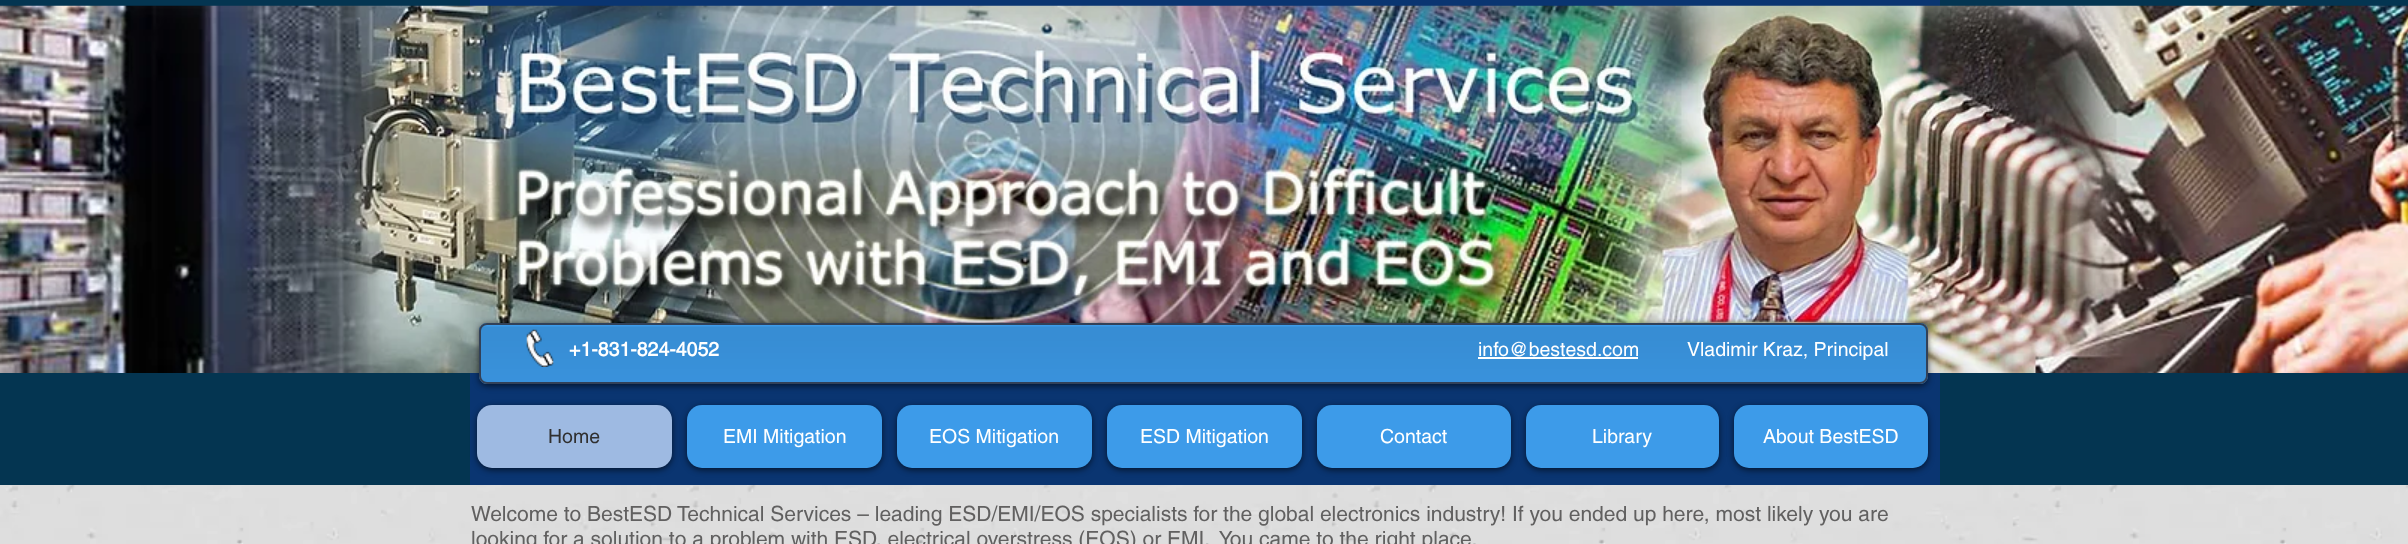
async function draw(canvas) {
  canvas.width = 2408;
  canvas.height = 544;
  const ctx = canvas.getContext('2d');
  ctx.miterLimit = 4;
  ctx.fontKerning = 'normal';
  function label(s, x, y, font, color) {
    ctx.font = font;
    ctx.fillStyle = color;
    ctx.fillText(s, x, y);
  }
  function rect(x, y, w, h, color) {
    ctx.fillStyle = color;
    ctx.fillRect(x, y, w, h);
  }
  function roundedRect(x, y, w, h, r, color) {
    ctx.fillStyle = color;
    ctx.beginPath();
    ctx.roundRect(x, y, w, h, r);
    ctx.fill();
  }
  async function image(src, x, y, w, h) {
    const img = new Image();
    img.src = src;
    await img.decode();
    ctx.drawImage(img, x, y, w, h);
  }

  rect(0, 0, 2408, 544, '#fff');
  rect(0, 0, 2408, 485, '#043551');
  rect(470, 0, 1470, 485, '#0a3571');
  await image('assets/img1.png', 0, 5, 2408, 368);
  ctx.fillStyle = '#00000099';
  ctx.filter = 'blur(3px)';
  ctx.beginPath();
  ctx.roundRect(479, 324, 1449, 62, 8);
  ctx.fill();
  ctx.filter = 'none';
  roundedRect(479, 323, 1449, 61, 8, '#3d9be9');
  await image('assets/img2.png', 479, 326, 1448, 57);
  ctx.beginPath();
  ctx.roundRect(480, 324, 1447, 59, 7);
  ctx.strokeStyle = '#324158';
  ctx.lineWidth = 2;
  ctx.stroke();
  await image('assets/img3.png', 526, 329, 28, 38);
  label('+1-831-824-4052', 569, 356, 'bold 19.5px helvetica', '#fff');
  label('info@bestesd.com', 1478, 356, '19.5px helvetica', '#fff');
  rect(1478, 357, 160, 2, '#fff');
  label('Vladimir Kraz, Principal', 1687, 356, '19.5px helvetica', '#fff');
  ctx.fillStyle = '#00000099';
  ctx.filter = 'blur(3px)';
  ctx.beginPath();
  ctx.roundRect(477, 407, 195, 63, 15);
  ctx.fill();
  ctx.filter = 'none';
  roundedRect(477, 405, 195, 63, 15, '#9ebae2');
  label('Home', 548, 443, '19.5px helvetica', '#303030');
  ctx.fillStyle = '#00000099';
  ctx.filter = 'blur(3px)';
  ctx.beginPath();
  ctx.roundRect(687, 407, 195, 63, 15);
  ctx.fill();
  ctx.filter = 'none';
  roundedRect(687, 405, 195, 63, 15, '#3d9be9');
  label('EMI Mitigation', 723, 443, '19.5px helvetica', '#fff');
  ctx.fillStyle = '#00000099';
  ctx.filter = 'blur(3px)';
  ctx.beginPath();
  ctx.roundRect(897, 407, 195, 63, 15);
  ctx.fill();
  ctx.filter = 'none';
  roundedRect(897, 405, 195, 63, 15, '#3d9be9');
  label('EOS Mitigation', 929, 443, '19.5px helvetica', '#fff');
  ctx.fillStyle = '#00000099';
  ctx.filter = 'blur(3px)';
  ctx.beginPath();
  ctx.roundRect(1107, 407, 195, 63, 15);
  ctx.fill();
  ctx.filter = 'none';
  roundedRect(1107, 405, 195, 63, 15, '#3d9be9');
  label('ESD Mitigation', 1140, 443, '19.5px helvetica', '#fff');
  ctx.fillStyle = '#00000099';
  ctx.filter = 'blur(3px)';
  ctx.beginPath();
  ctx.roundRect(1317, 407, 194, 63, 15);
  ctx.fill();
  ctx.filter = 'none';
  roundedRect(1317, 405, 194, 63, 15, '#3d9be9');
  label('Contact', 1380, 443, '19.5px helvetica', '#fff');
  ctx.fillStyle = '#00000099';
  ctx.filter = 'blur(3px)';
  ctx.beginPath();
  ctx.roundRect(1526, 407, 193, 63, 15);
  ctx.fill();
  ctx.filter = 'none';
  roundedRect(1526, 405, 193, 63, 15, '#3d9be9');
  label('Library', 1592, 443, '19.5px helvetica', '#fff');
  ctx.fillStyle = '#00000099';
  ctx.filter = 'blur(3px)';
  ctx.beginPath();
  ctx.roundRect(1734, 407, 194, 63, 15);
  ctx.fill();
  ctx.filter = 'none';
  roundedRect(1734, 405, 194, 63, 15, '#3d9be9');
  label('About BestESD', 1763, 443, '19.5px helvetica', '#fff');
  await image('assets/img4.png', 0, 485, 2408, 59);
  label('Welcome to BestESD Technical Services – leading ESD/EMI/EOS specialists for the global electronics industry! If you ended up here, most likely you are', 471, 521, '21px helvetica', '#616060');
  label('looking for a solution to a problem with ESD, electrical overstress (EOS) or EMI.  You came to the right place.', 471, 546, '21px helvetica', '#616060');
}

draw(document.querySelector('canvas'));
